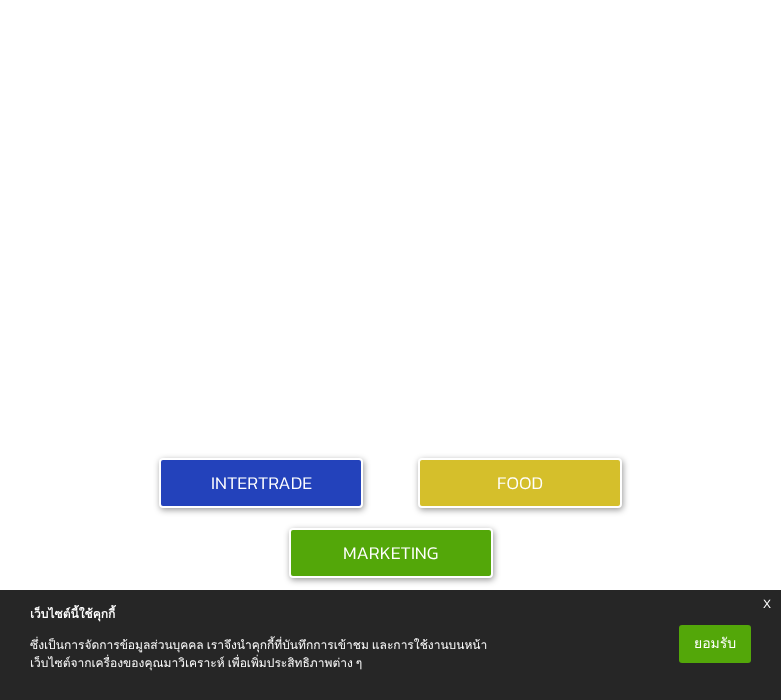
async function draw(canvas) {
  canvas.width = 781;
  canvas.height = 700;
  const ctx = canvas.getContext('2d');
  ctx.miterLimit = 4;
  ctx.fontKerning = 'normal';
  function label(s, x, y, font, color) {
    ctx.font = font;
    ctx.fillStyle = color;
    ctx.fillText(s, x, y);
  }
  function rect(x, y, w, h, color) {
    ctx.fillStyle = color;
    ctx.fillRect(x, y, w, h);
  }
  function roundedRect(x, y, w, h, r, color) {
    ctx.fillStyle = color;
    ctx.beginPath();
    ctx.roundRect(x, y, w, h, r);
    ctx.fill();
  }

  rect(0, 0, 781, 700, '#fff');
  ctx.fillStyle = '#00000066';
  ctx.filter = 'blur(3px)';
  ctx.beginPath();
  ctx.roundRect(160, 460, 204, 50, 4);
  ctx.fill();
  ctx.filter = 'none';
  ctx.fillStyle = '#2342bb';
  ctx.beginPath();
  ctx.roundRect(160, 459, 202, 48, 3);
  ctx.fill();
  ctx.strokeStyle = '#fff';
  ctx.lineWidth = 2;
  ctx.stroke();
  label('INTERTRADE', 211, 489, '300 18px Kanit', '#fff');
  ctx.fillStyle = '#00000066';
  ctx.filter = 'blur(3px)';
  ctx.beginPath();
  ctx.roundRect(419, 460, 204, 50, 4);
  ctx.fill();
  ctx.filter = 'none';
  ctx.fillStyle = '#d5bf2b';
  ctx.beginPath();
  ctx.roundRect(419, 459, 202, 48, 3);
  ctx.fill();
  ctx.stroke();
  label('FOOD', 497, 489, '300 18px Kanit', '#fff');
  ctx.fillStyle = '#00000066';
  ctx.filter = 'blur(3px)';
  ctx.beginPath();
  ctx.roundRect(290, 530, 204, 50, 4);
  ctx.fill();
  ctx.filter = 'none';
  ctx.fillStyle = '#53a709';
  ctx.beginPath();
  ctx.roundRect(290, 529, 202, 48, 3);
  ctx.fill();
  ctx.stroke();
  label('MARKETING', 343, 559, '300 18px Kanit', '#fff');
  rect(0, 590, 781, 110, '#262626');
  label('X', 763, 608, '12px Liberation Sans', '#fff');
  label('เว็บไซต์นี้ใช้คุกกี้', 30, 618, 'bold 12px Loma', '#fff');
  ctx.wordSpacing = '-1px';
  label('ซึ่งเป็นการจัดการข้อมูลส่วนบุคคล เราจึงนำคุกกี้ที่บันทึกการเข้าชม และการใช้งานบนหน้า', 30, 649, '12px Loma', '#fff');
  label('เว็บไซต์จากเครื่องของคุณมาวิเคราะห์ เพื่อเพิ่มประสิทธิภาพต่าง ๆ', 30, 667, '12px Loma', '#fff');
  roundedRect(679, 625, 72, 38, 3, '#53a709');
  ctx.wordSpacing = '0px';
  label('ยอมรับ', 694, 648, '14px Loma', '#fff');
}

draw(document.querySelector('canvas'));
